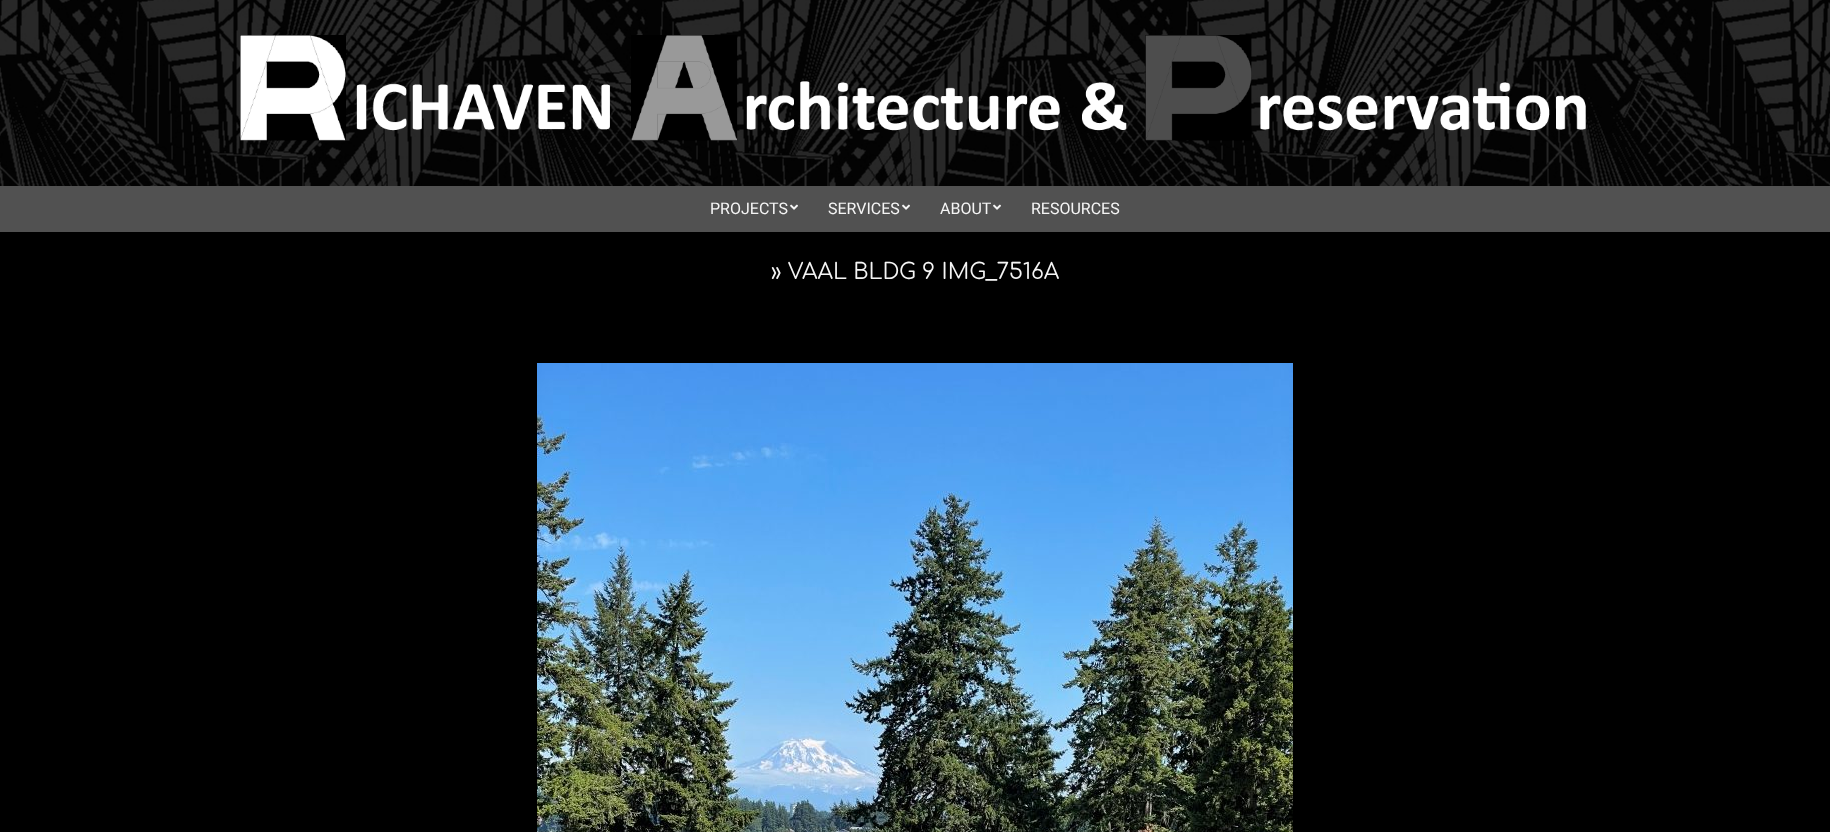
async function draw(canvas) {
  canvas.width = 1830;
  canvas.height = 832;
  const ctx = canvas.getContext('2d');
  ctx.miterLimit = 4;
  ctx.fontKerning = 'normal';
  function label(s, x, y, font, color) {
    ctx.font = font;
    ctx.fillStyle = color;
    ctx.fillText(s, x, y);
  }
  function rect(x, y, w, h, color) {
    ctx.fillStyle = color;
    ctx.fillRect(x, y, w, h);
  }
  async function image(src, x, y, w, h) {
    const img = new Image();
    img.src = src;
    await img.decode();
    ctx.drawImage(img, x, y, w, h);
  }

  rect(0, 0, 1830, 832, '#fff');
  await image('assets/img1.png', 0, 0, 1830, 186);
  await image('assets/img2.png', 240, 35, 1346, 106);
  rect(0, 186, 1830, 46, '#515151');
  label('PROJECTS', 710, 214, '16px Roboto', '#f5f5f5');
  await image('assets/img3.png', 790, 204, 8, 6);
  label('SERVICES', 828, 214, '16px Roboto', '#f5f5f5');
  await image('assets/img3.png', 902, 204, 8, 6);
  label('ABOUT', 940, 214, '16px Roboto', '#f5f5f5');
  await image('assets/img3.png', 993, 204, 8, 6);
  label('RESOURCES', 1031, 214, '16px Roboto', '#f5f5f5');
  rect(0, 232, 1830, 600, '#000');
  label('» VAAL BLDG 9 IMG_7516A', 771, 279, '22px Comfortaa', '#f5f5f5');
  await image('assets/img4.png', 537, 363, 756, 469);
}

draw(document.querySelector('canvas'));
